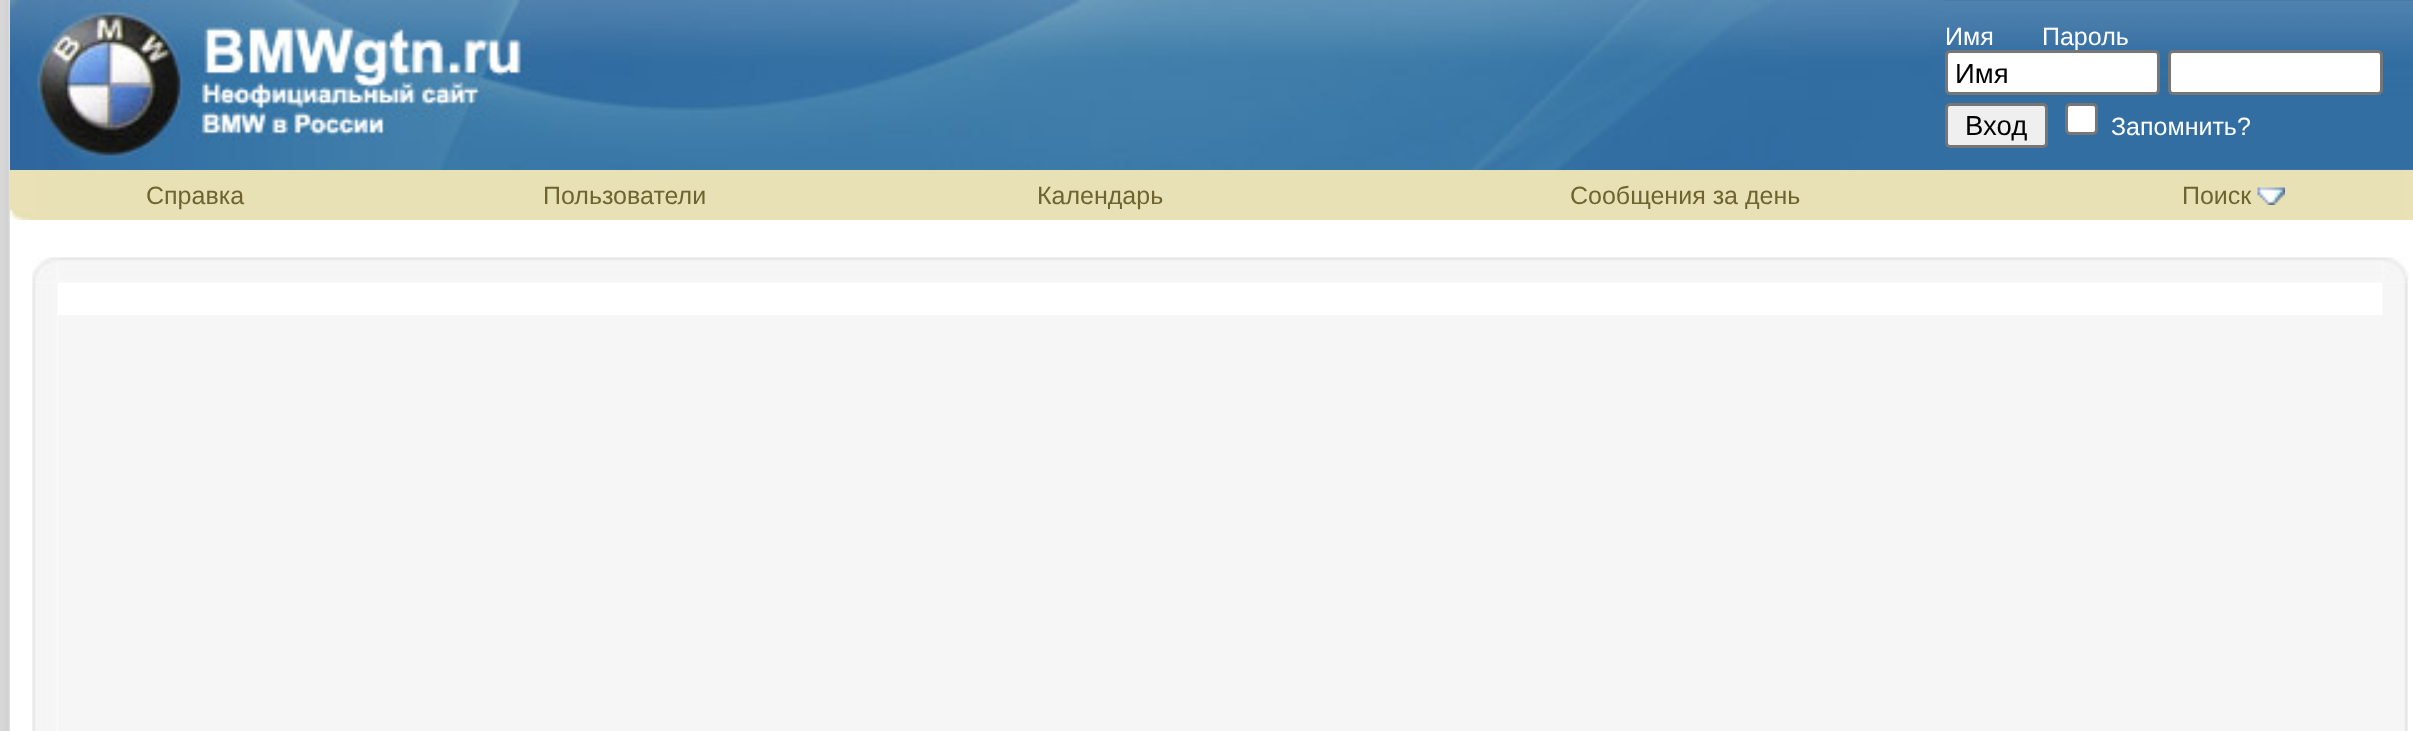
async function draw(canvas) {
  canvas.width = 2413;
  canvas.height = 731;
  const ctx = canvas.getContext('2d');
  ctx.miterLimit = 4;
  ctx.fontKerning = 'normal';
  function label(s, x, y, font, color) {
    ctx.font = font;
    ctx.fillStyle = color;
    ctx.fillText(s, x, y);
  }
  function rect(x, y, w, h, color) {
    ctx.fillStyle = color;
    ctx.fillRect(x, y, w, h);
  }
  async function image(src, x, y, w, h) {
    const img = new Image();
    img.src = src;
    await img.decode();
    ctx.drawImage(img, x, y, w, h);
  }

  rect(0, 0, 2413, 731, '#fff');
  await image('assets/img1.png', 0, 0, 10, 731);
  await image('assets/img2.png', 1945, 0, 468, 170);
  await image('assets/img3.png', 10, 0, 520, 170);
  await image('assets/img4.png', 530, 0, 1415, 170);
  label('Имя', 1945, 45, '25px Liberation Sans', '#fff');
  label('Пароль', 2042, 45, '25px Liberation Sans', '#fff');
  ctx.beginPath();
  ctx.roundRect(1946.5, 51.5, 212, 42, 3.5);
  ctx.fill();
  ctx.strokeStyle = '#767676';
  ctx.lineWidth = 3;
  ctx.stroke();
  label('Имя', 1955, 83, '27.5px Liberation Sans', '#000');
  ctx.fillStyle = '#fff';
  ctx.beginPath();
  ctx.roundRect(2169.5, 51.5, 212, 42, 3.5);
  ctx.fill();
  ctx.stroke();
  ctx.fillStyle = '#efefef';
  ctx.beginPath();
  ctx.roundRect(1946.5, 104.5, 100, 42, 3.5);
  ctx.fill();
  ctx.stroke();
  label('Вход', 1965, 135, '27.5px Liberation Sans', '#000');
  ctx.fillStyle = '#fff';
  ctx.beginPath();
  ctx.roundRect(2066.5, 104.5, 30, 29, 3.5);
  ctx.fill();
  ctx.stroke();
  label('Запомнить?', 2111, 135, '25px Liberation Sans', '#fff');
  await image('assets/img5.png', 10, 170, 25, 50);
  rect(35, 170, 2370, 50, '#e9e1b6');
  label('Справка', 146, 204, '25px Liberation Sans', '#6e642f');
  label('Пользователи', 543, 204, '25px Liberation Sans', '#6e642f');
  label('Календарь', 1037, 204, '25px Liberation Sans', '#6e642f');
  label('Сообщения за день', 1570, 204, '25px Liberation Sans', '#6e642f');
  label('Поиск', 2182, 204, '25px Liberation Sans', '#6e642f');
  await image('assets/img6.png', 2257, 187, 28, 18);
  rect(2405, 170, 8, 50, '#eae1b6');
  await image('assets/img8.png', 57, 257, 2326, 26);
  await image('assets/img10.png', 32, 282, 26, 449);
  await image('assets/img7.png', 32, 257, 26, 26);
  rect(58, 315, 2325, 416, '#f6f6f6');
  await image('assets/img11.png', 2382, 282, 26, 449);
  await image('assets/img9.png', 2382, 257, 27, 26);
}

draw(document.querySelector('canvas'));
